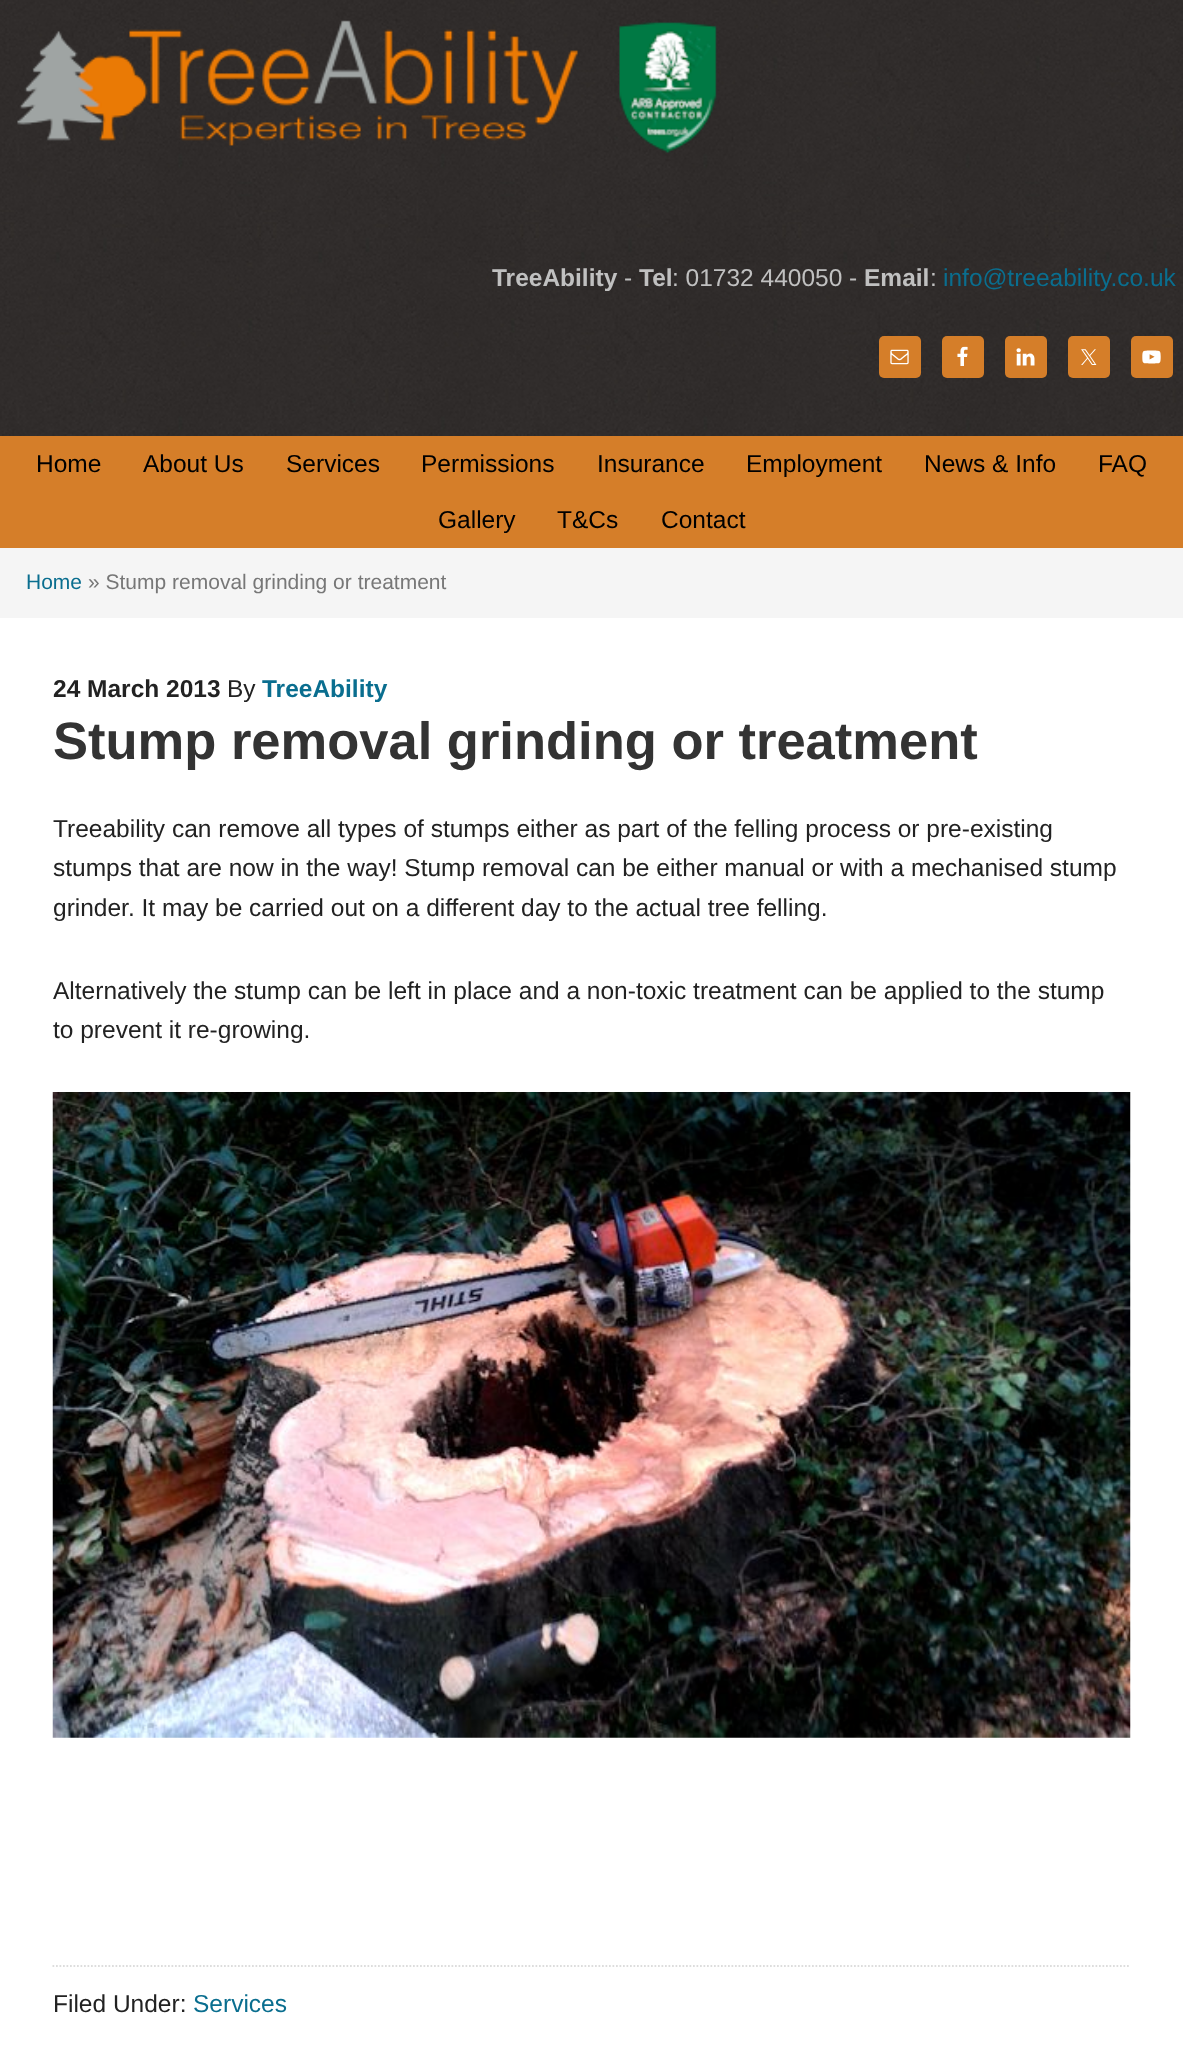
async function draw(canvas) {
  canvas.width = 1183;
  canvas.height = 2048;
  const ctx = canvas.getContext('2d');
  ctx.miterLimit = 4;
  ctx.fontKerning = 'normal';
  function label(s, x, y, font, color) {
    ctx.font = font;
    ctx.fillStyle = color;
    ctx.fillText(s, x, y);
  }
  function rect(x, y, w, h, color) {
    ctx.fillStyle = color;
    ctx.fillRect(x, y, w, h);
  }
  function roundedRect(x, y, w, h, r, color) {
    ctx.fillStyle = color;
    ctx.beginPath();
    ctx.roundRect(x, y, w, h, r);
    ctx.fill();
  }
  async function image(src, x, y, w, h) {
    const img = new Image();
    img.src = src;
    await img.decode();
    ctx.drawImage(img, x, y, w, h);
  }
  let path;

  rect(0, 0, 1183, 2048, '#fff');
  await image('assets/img1.png', 0, 0, 1183, 436);
  await image('assets/img2.png', 17, 20, 700, 133);
  label('TreeAbility', 492, 286, 'bold 24.5px Liberation Sans', '#c0c0c0');
  label('-', 624, 286, '24.5px Liberation Sans', '#c0c0c0');
  label('Tel', 639, 286, 'bold 24.5px Liberation Sans', '#c0c0c0');
  label(': 01732 440050 -', 672, 286, '24.5px Liberation Sans', '#c0c0c0');
  label('Email', 864, 286, 'bold 24.5px Liberation Sans', '#c0c0c0');
  label(':', 930, 286, '24.5px Liberation Sans', '#c0c0c0');
  label('info@treeability.co.uk', 943, 286, '24.5px Liberation Sans', '#0a6e8f');
  roundedRect(879, 336, 42, 42, 5, '#d57e29');
  await image('assets/img3.png', 890, 349, 19, 16);
  roundedRect(942, 336, 42, 42, 5, '#d57e29');
  await image('assets/img4.png', 957, 346, 11, 20);
  roundedRect(1005, 336, 42, 42, 5, '#d57e29');
  await image('assets/img5.png', 1016, 348, 19, 18);
  roundedRect(1068, 336, 42, 42, 5, '#d57e29');
  await image('assets/img6.png', 1081, 349, 16, 16);
  roundedRect(1131, 336, 42, 42, 5, '#d57e29');
  await image('assets/img7.png', 1142, 350, 19, 14);
  rect(0, 436, 1183, 112, '#d57e29');
  label('Home', 36, 472, '24.5px Liberation Sans', '#000');
  label('About Us', 143, 472, '24.5px Liberation Sans', '#000');
  label('Services', 286, 472, '24.5px Liberation Sans', '#000');
  label('Permissions', 421, 472, '24.5px Liberation Sans', '#000');
  label('Insurance', 597, 472, '24.5px Liberation Sans', '#000');
  label('Employment', 746, 472, '24.5px Liberation Sans', '#000');
  label('News & Info', 924, 472, '24.5px Liberation Sans', '#000');
  label('FAQ', 1098, 472, '24.5px Liberation Sans', '#000');
  label('Gallery', 438, 528, '24.5px Liberation Sans', '#000');
  label('T&Cs', 557, 528, '24.5px Liberation Sans', '#000');
  label('Contact', 661, 528, '24.5px Liberation Sans', '#000');
  rect(0, 548, 1183, 70, '#f5f5f5');
  label('Home', 26, 589, '21px Liberation Sans', '#0a6e8f');
  label('» Stump removal grinding or treatment', 88, 589, '21px Liberation Sans', '#777');
  label('24 March 2013', 53, 697, 'bold 24.5px Liberation Sans', '#222');
  label('By', 227, 697, '24.5px Liberation Sans', '#222');
  label('TreeAbility', 262, 697, 'bold 24.5px Liberation Sans', '#0a6e8f');
  label('Stump removal grinding or treatment', 53, 759, 'bold 52.5px Liberation Sans', '#333');
  label('Treeability can remove all types of stumps either as part of the felling process or pre-existing', 53, 837, '24.5px Liberation Sans', '#222');
  label('stumps that are now in the way! Stump removal can be either manual or with a mechanised stump', 53, 876, '24.5px Liberation Sans', '#222');
  label('grinder. It may be carried out on a different day to the actual tree felling.', 53, 916, '24.5px Liberation Sans', '#222');
  label('Alternatively the stump can be left in place and a non-toxic treatment can be applied to the stump', 53, 999, '24.5px Liberation Sans', '#222');
  label('to prevent it re-growing.', 53, 1038, '24.5px Liberation Sans', '#222');
  await image('assets/img8.png', 52, 1092, 1079, 646);
  path = new Path2D('M52.5 1966H1130.5');
  ctx.strokeStyle = '#ddd';
  ctx.lineWidth = 1.8;
  ctx.setLineDash([1.75, 1.75]);
  ctx.stroke(path);
  label('Filed Under:', 53, 2012, '24.5px Liberation Sans', '#222');
  label('Services', 193, 2012, '24.5px Liberation Sans', '#0a6e8f');
}

draw(document.querySelector('canvas'));
